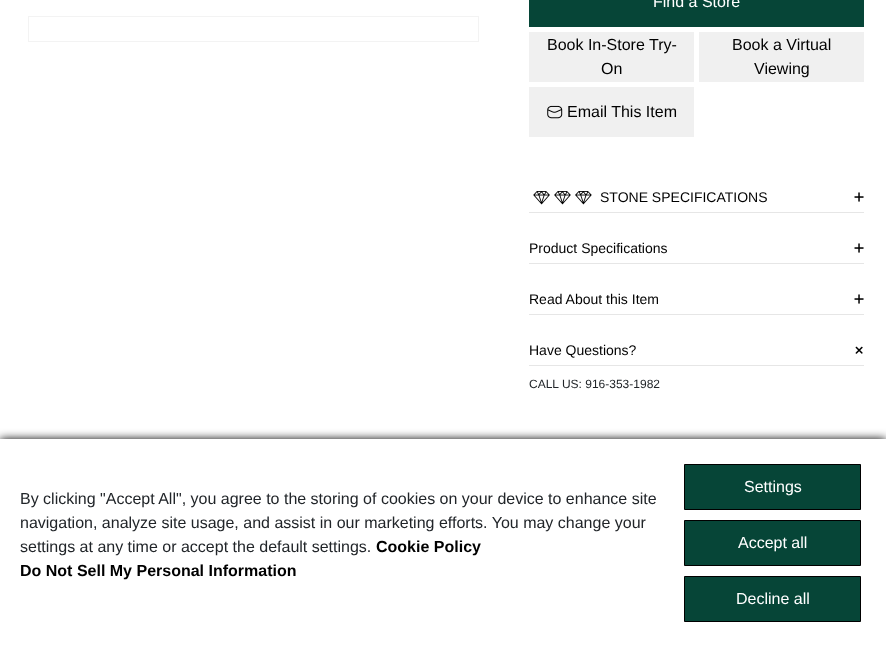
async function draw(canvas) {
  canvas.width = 886;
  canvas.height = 647;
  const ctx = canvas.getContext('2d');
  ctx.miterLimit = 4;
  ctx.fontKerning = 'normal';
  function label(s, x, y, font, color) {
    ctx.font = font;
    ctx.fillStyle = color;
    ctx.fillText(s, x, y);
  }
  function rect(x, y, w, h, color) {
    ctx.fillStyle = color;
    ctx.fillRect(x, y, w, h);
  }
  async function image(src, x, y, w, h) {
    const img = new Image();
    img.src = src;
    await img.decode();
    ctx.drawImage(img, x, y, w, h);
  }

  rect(0, 0, 886, 647, '#fff');
  ctx.strokeStyle = '#f3f3f3';
  ctx.strokeRect(28.5, 16.5, 450, 25);
  rect(529, 0, 335, 27, '#064537');
  label('Find a Store', 653, 7, '16px Liberation Sans', '#fff');
  rect(529, 32, 165, 50, '#f0f0f0');
  label('Book In-Store Try-', 547, 50, '16px Liberation Sans', '#000');
  label('On', 601, 74, '16px Liberation Sans', '#000');
  rect(699, 32, 165, 50, '#f0f0f0');
  label('Book a Virtual', 732, 50, '16px Liberation Sans', '#000');
  label('Viewing', 754, 74, '16px Liberation Sans', '#000');
  rect(529, 87, 165, 50, '#f0f0f0');
  await image('assets/img1.png', 547, 105, 16, 14);
  label('Email This Item', 567, 117, '16px Liberation Sans', '#000');
  await image('assets/img2.png', 533, 191, 59, 14);
  label('STONE SPECIFICATIONS', 600, 202, '14px Liberation Sans', '#000');
  await image('assets/img3.png', 854, 192, 10, 10);
  rect(529, 212, 335, 1, '#e6e6e6');
  label('Product Specifications', 529, 253, '14px Liberation Sans', '#000');
  await image('assets/img3.png', 854, 243, 10, 10);
  rect(529, 263, 335, 1, '#e6e6e6');
  label('Read About this Item', 529, 304, '14px Liberation Sans', '#000');
  await image('assets/img3.png', 854, 294, 10, 10);
  rect(529, 314, 335, 1, '#e6e6e6');
  label('Have Questions?', 529, 355, '14px Liberation Sans', '#000');
  await image('assets/img4.png', 855, 346, 8, 8);
  rect(529, 365, 335, 1, '#e6e6e6');
  label('CALL US: 916-353-1982', 529, 388, '12px Liberation Sans', '#212529');
  ctx.fillStyle = '#000';
  ctx.filter = 'blur(5px)';
  ctx.beginPath();
  ctx.rect(0, 439, 886, 208);
  ctx.fill();
  ctx.filter = 'none';
  rect(0, 439, 886, 208, '#fff');
  label('By clicking "Accept All", you agree to the storing of cookies on your device to enhance site', 20, 504, '16px Liberation Sans', '#212529');
  label('navigation, analyze site usage, and assist in our marketing efforts. You may change your', 20, 528, '16px Liberation Sans', '#212529');
  label('settings at any time or accept the default settings.', 20, 552, '16px Liberation Sans', '#212529');
  label('Cookie Policy', 376, 552, 'bold 16px Liberation Sans', '#000');
  label('Do Not Sell My Personal Information', 20, 576, 'bold 16px Liberation Sans', '#000');
  ctx.fillStyle = '#064537';
  ctx.beginPath();
  ctx.rect(684.5, 464.5, 176, 45);
  ctx.fill();
  ctx.strokeStyle = '#000';
  ctx.stroke();
  label('Settings', 744, 492, '16px Liberation Sans', '#fff');
  ctx.fillStyle = '#064537';
  ctx.beginPath();
  ctx.rect(684.5, 520.5, 176, 45);
  ctx.fill();
  ctx.stroke();
  label('Accept all', 738, 548, '16px Liberation Sans', '#fff');
  ctx.fillStyle = '#064537';
  ctx.beginPath();
  ctx.rect(684.5, 576.5, 176, 45);
  ctx.fill();
  ctx.stroke();
  label('Decline all', 736, 604, '16px Liberation Sans', '#fff');
}

draw(document.querySelector('canvas'));
